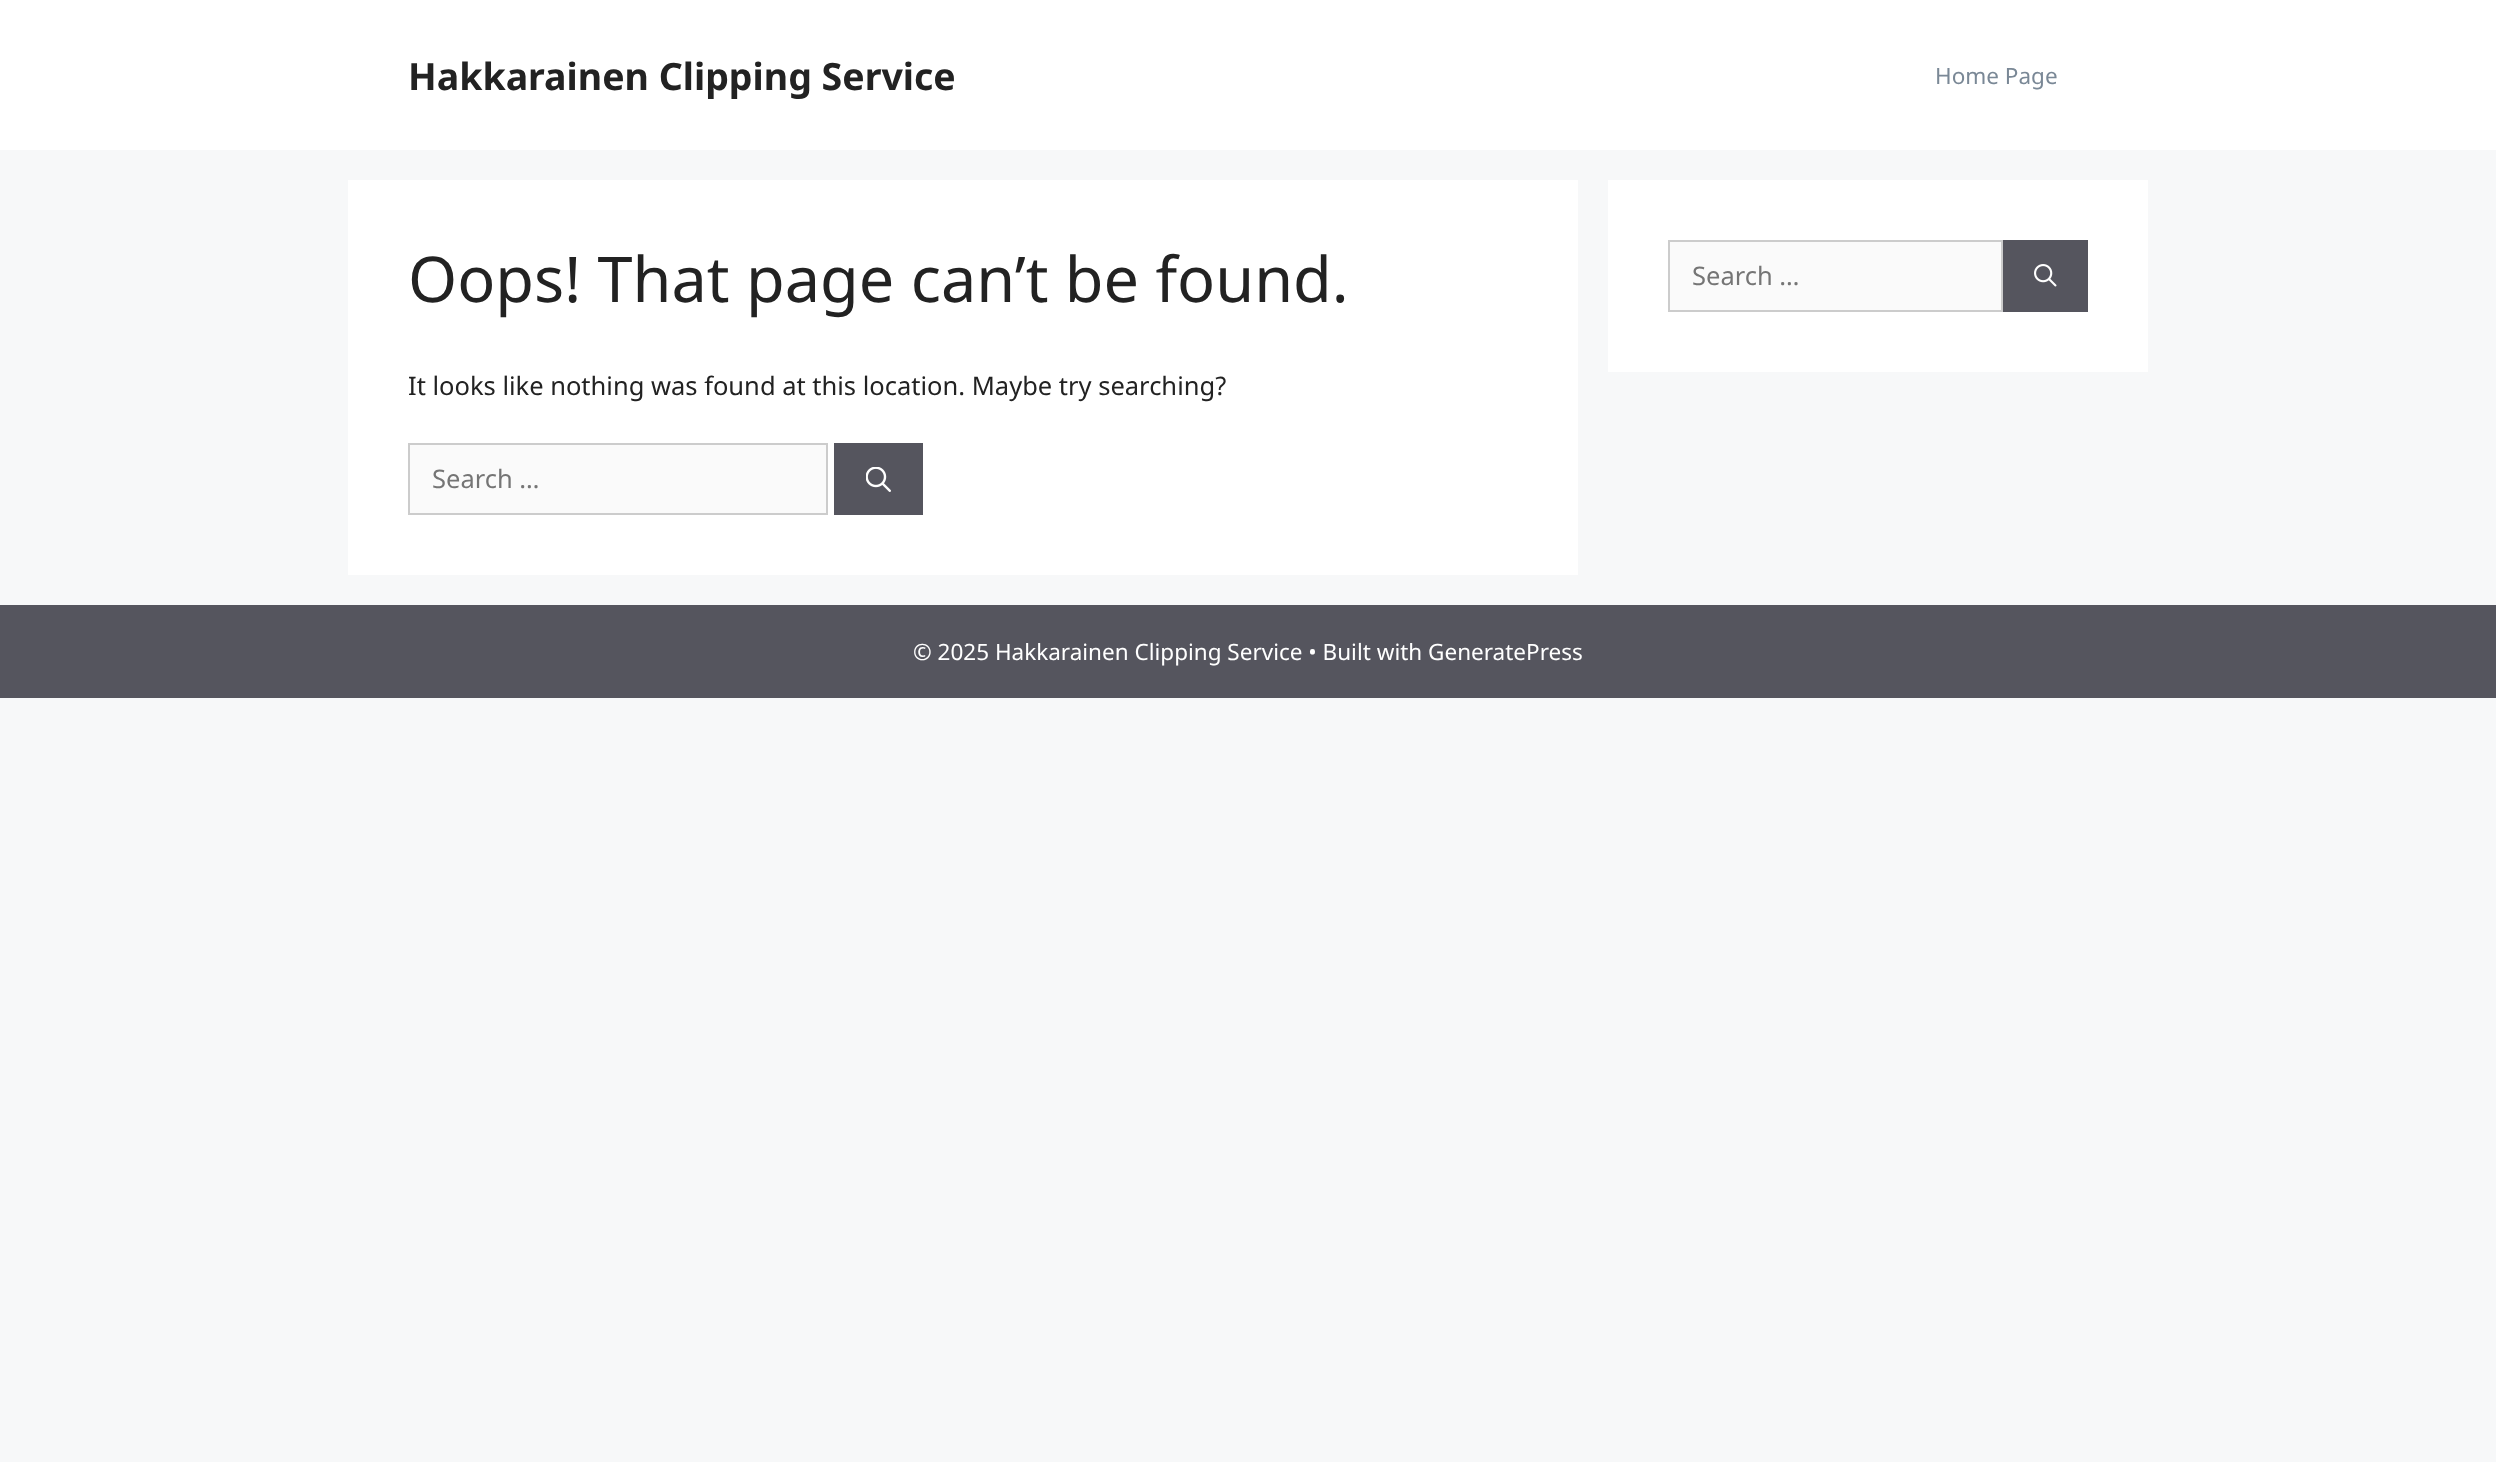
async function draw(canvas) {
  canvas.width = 2496;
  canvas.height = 1462;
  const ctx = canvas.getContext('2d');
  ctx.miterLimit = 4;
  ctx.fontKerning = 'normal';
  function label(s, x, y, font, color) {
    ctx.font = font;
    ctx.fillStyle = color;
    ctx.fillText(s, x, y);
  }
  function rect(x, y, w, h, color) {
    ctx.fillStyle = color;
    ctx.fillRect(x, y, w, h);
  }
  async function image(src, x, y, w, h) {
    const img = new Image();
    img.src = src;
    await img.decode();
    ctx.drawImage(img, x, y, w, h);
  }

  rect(0, 0, 2496, 1462, '#f7f8f9');
  rect(0, 0, 2496, 150, '#fff');
  label('Hakkarainen Clipping Service', 408, 90, 'bold 37.5px Noto Sans', '#222');
  label('Home Page', 1935, 84, '22.5px Noto Sans', '#7a8896');
  rect(348, 180, 1230, 395, '#fff');
  label('Oops! That page can’t be found.', 408, 302, '63px Noto Sans', '#222');
  label('It looks like nothing was found at this location. Maybe try searching?', 408, 395, '25.5px Noto Sans', '#222');
  ctx.fillStyle = '#fafafa';
  ctx.beginPath();
  ctx.rect(409, 444, 418, 70);
  ctx.fill();
  ctx.strokeStyle = '#ccc';
  ctx.lineWidth = 2;
  ctx.stroke();
  label('Search …', 432, 488, '25.5px Noto Sans', '#757575');
  rect(834, 443, 89, 72, '#55555e');
  await image('assets/img1.png', 866, 467, 25, 25);
  rect(1608, 180, 540, 192, '#fff');
  ctx.fillStyle = '#fafafa';
  ctx.beginPath();
  ctx.rect(1669, 241, 333, 70);
  ctx.fill();
  ctx.stroke();
  label('Search …', 1692, 285, '25.5px Noto Sans', '#757575');
  rect(2003, 240, 85, 72, '#55555e');
  await image('assets/img2.png', 2034, 264, 23, 23);
  rect(0, 605, 2496, 93, '#55555e');
  label('© 2025 Hakkarainen Clipping Service • Built with GeneratePress', 913, 660, '22.5px Noto Sans', '#fff');
}

draw(document.querySelector('canvas'));
